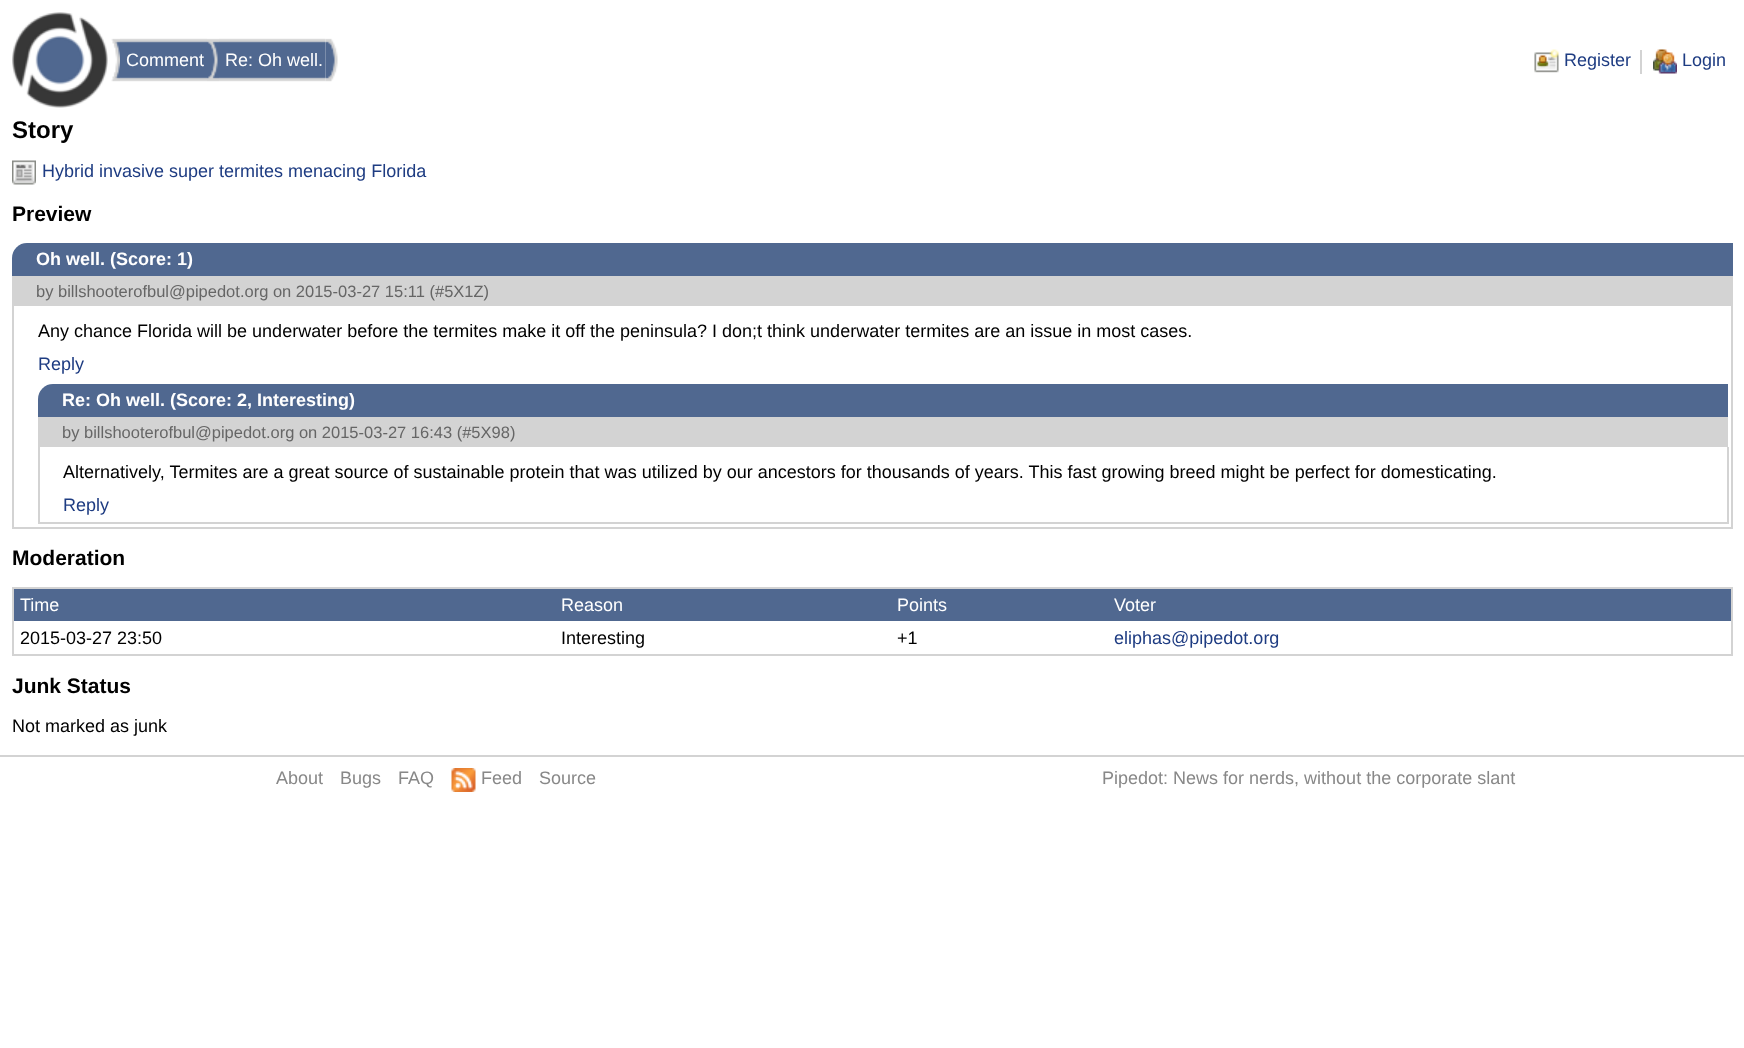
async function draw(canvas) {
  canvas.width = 1744;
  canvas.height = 1048;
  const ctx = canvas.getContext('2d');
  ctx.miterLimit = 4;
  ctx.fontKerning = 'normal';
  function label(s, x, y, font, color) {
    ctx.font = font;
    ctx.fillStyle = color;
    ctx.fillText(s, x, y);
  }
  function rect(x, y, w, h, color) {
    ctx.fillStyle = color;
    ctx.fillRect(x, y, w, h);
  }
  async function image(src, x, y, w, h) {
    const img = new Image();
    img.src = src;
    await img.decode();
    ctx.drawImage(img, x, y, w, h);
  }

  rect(0, 0, 1744, 1048, '#fff');
  await image('assets/img1.png', 12, 12, 96, 96);
  await image('assets/img2.png', 111, 38, 9, 44);
  await image('assets/img3.png', 120, 38, 87, 44);
  label('Comment', 126, 66, '18px Liberation Sans', '#fff');
  await image('assets/img4.png', 207, 38, 12, 44);
  await image('assets/img5.png', 219, 38, 107, 44);
  label('Re: Oh well.', 225, 66, '18px Liberation Sans', '#fff');
  await image('assets/img6.png', 325, 38, 13, 44);
  rect(1640, 50, 2, 24, '#d3d3d3');
  await image('assets/img7.png', 1534, 49, 25, 24);
  label('Register', 1564, 66, '18px Liberation Sans', '#1e3c82');
  await image('assets/img8.png', 1653, 49, 24, 25);
  label('Login', 1682, 66, '18px Liberation Sans', '#1e3c82');
  label('Story', 12, 138, 'bold 24px Liberation Sans', '#000');
  await image('assets/img9.png', 12, 160, 24, 25);
  label('Hybrid invasive super termites menacing Florida', 42, 177, '18px Liberation Sans', '#1e3c82');
  label('Preview', 12, 221, 'bold 21px Liberation Sans', '#000');
  ctx.fillStyle = '#506890';
  ctx.beginPath();
  ctx.roundRect(12, 243, 1721, 33, [15, 0, 0, 0]);
  ctx.fill();
  label('Oh well. (Score: 1)', 36, 265, 'bold 18px Liberation Sans', '#fff');
  rect(12, 276, 1721, 30, '#d3d3d3');
  label('by billshooterofbul@pipedot.org on 2015-03-27 15:11 (#5X1Z)', 36, 297, '16.5px Liberation Sans', '#666');
  rect(1731, 306, 2, 222, '#d3d3d3');
  rect(12, 527, 1721, 2, '#d3d3d3');
  rect(12, 306, 2, 222, '#d3d3d3');
  label('Any chance Florida will be underwater before the termites make it off the peninsula? I don;t think underwater termites are an issue in most cases.', 38, 337, '18px Liberation Sans', '#000');
  label('Reply', 38, 370, '18px Liberation Sans', '#1e3c82');
  ctx.fillStyle = '#506890';
  ctx.beginPath();
  ctx.roundRect(38, 384, 1690, 33, [15, 0, 0, 0]);
  ctx.fill();
  label('Re: Oh well. (Score: 2, Interesting)', 62, 406, 'bold 18px Liberation Sans', '#fff');
  rect(38, 417, 1690, 30, '#d3d3d3');
  label('by billshooterofbul@pipedot.org on 2015-03-27 16:43 (#5X98)', 62, 438, '16.5px Liberation Sans', '#666');
  rect(1727, 447, 2, 77, '#d3d3d3');
  rect(38, 522, 1690, 2, '#d3d3d3');
  rect(38, 447, 2, 77, '#d3d3d3');
  label('Alternatively, Termites are a great source of sustainable protein that was utilized by our ancestors for thousands of years. This fast growing breed might be perfect for domesticating.', 63, 478, '18px Liberation Sans', '#000');
  label('Reply', 63, 511, '18px Liberation Sans', '#1e3c82');
  label('Moderation', 12, 565, 'bold 21px Liberation Sans', '#000');
  rect(12, 587, 1721, 2, '#d3d3d3');
  rect(1731, 587, 2, 69, '#d3d3d3');
  rect(12, 654, 1721, 2, '#d3d3d3');
  rect(12, 587, 2, 69, '#d3d3d3');
  rect(14, 589, 1717, 32, '#506890');
  label('Time', 20, 611, '18px Liberation Sans', '#fff');
  label('Reason', 561, 611, '18px Liberation Sans', '#fff');
  label('Points', 897, 611, '18px Liberation Sans', '#fff');
  label('Voter', 1114, 611, '18px Liberation Sans', '#fff');
  label('2015-03-27 23:50', 20, 644, '18px Liberation Sans', '#000');
  label('Interesting', 561, 644, '18px Liberation Sans', '#000');
  label('+1', 897, 644, '18px Liberation Sans', '#000');
  label('eliphas@pipedot.org', 1114, 644, '18px Liberation Sans', '#1e3c82');
  label('Junk Status', 12, 693, 'bold 21px Liberation Sans', '#000');
  label('Not marked as junk', 12, 732, '18px Liberation Sans', '#000');
  rect(0, 755, 1744, 2, '#d3d3d3');
  label('About', 276, 784, '18px Liberation Sans', '#888');
  label('Bugs', 340, 784, '18px Liberation Sans', '#888');
  label('FAQ', 398, 784, '18px Liberation Sans', '#888');
  await image('assets/img10.png', 451, 768, 25, 24);
  label('Feed', 481, 784, '18px Liberation Sans', '#888');
  label('Source', 539, 784, '18px Liberation Sans', '#888');
  label('Pipedot: News for nerds, without the corporate slant', 1102, 784, '18px Liberation Sans', '#888');
}

draw(document.querySelector('canvas'));
